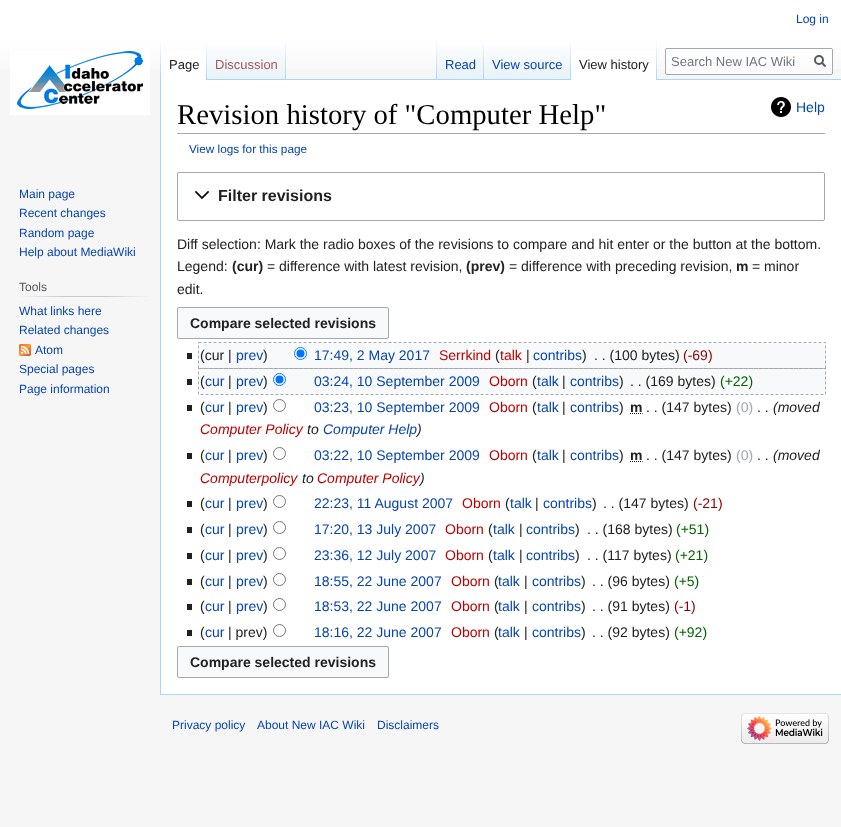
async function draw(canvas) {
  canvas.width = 841;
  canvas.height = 827;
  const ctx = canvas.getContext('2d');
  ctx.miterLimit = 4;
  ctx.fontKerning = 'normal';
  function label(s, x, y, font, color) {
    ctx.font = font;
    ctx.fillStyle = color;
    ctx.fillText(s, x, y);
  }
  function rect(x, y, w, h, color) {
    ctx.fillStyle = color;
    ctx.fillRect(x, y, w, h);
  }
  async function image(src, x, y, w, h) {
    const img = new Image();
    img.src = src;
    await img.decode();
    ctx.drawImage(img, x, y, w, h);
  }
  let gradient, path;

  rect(0, 0, 841, 827, '#f6f6f6');
  gradient = ctx.createLinearGradient(421, 0, 421, 80);
  gradient.addColorStop(0.5, '#fff');
  gradient.addColorStop(1, '#f6f6f6');
  ctx.fillStyle = gradient;
  ctx.fillRect(0, 0, 841, 69);
  label('Log in', 796, 23, '12px Liberation Sans', '#0645ad');
  rect(160, 694, 681, 1, '#a7d7f9');
  rect(160, 79, 1, 616, '#a7d7f9');
  gradient = ctx.createLinearGradient(161, 40, 161, 80);
  gradient.addColorStop(0, '#a7d7f900');
  gradient.addColorStop(1, '#a7d7f9');
  ctx.fillStyle = gradient;
  ctx.fillRect(160, 40, 1, 40);
  rect(161, 51, 45, 29, '#fff');
  gradient = ctx.createLinearGradient(207, 40, 207, 80);
  gradient.addColorStop(0, '#fff');
  gradient.addColorStop(1, '#a7d7f9');
  ctx.fillStyle = gradient;
  ctx.fillRect(206, 40, 1, 40);
  label('Page', 169, 69, '13px Liberation Sans', '#202122');
  gradient = ctx.createLinearGradient(247, 80, 247, 40);
  gradient.addColorStop(0, '#77c1f6');
  gradient.addColorStop(0.03, '#e8f2f8');
  gradient.addColorStop(1, '#fff');
  ctx.fillStyle = gradient;
  ctx.fillRect(207, 46, 79, 34);
  gradient = ctx.createLinearGradient(286, 40, 286, 80);
  gradient.addColorStop(0, '#a7d7f900');
  gradient.addColorStop(1, '#a7d7f9');
  ctx.fillStyle = gradient;
  ctx.fillRect(285, 40, 1, 40);
  label('Discussion', 215, 69, '13px Liberation Sans', '#a55858');
  rect(286, 79, 555, 1, '#a7d7f9');
  gradient = ctx.createLinearGradient(437, 40, 437, 80);
  gradient.addColorStop(0, '#a7d7f900');
  gradient.addColorStop(1, '#a7d7f9');
  ctx.fillStyle = gradient;
  ctx.fillRect(436, 40, 1, 40);
  gradient = ctx.createLinearGradient(461, 80, 461, 40);
  gradient.addColorStop(0, '#77c1f6');
  gradient.addColorStop(0.03, '#e8f2f8');
  gradient.addColorStop(1, '#fff');
  ctx.fillStyle = gradient;
  ctx.fillRect(437, 46, 47, 33);
  gradient = ctx.createLinearGradient(484, 40, 484, 80);
  gradient.addColorStop(0, '#a7d7f900');
  gradient.addColorStop(1, '#a7d7f9');
  ctx.fillStyle = gradient;
  ctx.fillRect(483, 40, 1, 40);
  label('Read', 445, 69, '13px Liberation Sans', '#0645ad');
  gradient = ctx.createLinearGradient(528, 80, 528, 40);
  gradient.addColorStop(0, '#77c1f6');
  gradient.addColorStop(0.03, '#e8f2f8');
  gradient.addColorStop(1, '#fff');
  ctx.fillStyle = gradient;
  ctx.fillRect(484, 46, 87, 33);
  gradient = ctx.createLinearGradient(571, 40, 571, 80);
  gradient.addColorStop(0, '#a7d7f900');
  gradient.addColorStop(1, '#a7d7f9');
  ctx.fillStyle = gradient;
  ctx.fillRect(570, 40, 1, 40);
  label('View source', 492, 69, '13px Liberation Sans', '#0645ad');
  rect(571, 51, 85, 29, '#fff');
  gradient = ctx.createLinearGradient(657, 40, 657, 80);
  gradient.addColorStop(0, '#fff');
  gradient.addColorStop(1, '#a7d7f9');
  ctx.fillStyle = gradient;
  ctx.fillRect(656, 40, 1, 40);
  label('View history', 579, 69, '13px Liberation Sans', '#202122');
  ctx.fillStyle = '#ffffff80';
  ctx.beginPath();
  ctx.roundRect(665.5, 48.5, 167, 26, 1.5);
  ctx.fill();
  ctx.strokeStyle = '#a2a9b1';
  ctx.stroke();
  label('Search New IAC Wiki', 671, 66, '13px Liberation Sans', '#72777d');
  path = new Path2D('M825.5 66.5L821.5 62.5');
  ctx.strokeStyle = '#54595d';
  ctx.lineWidth = 2;
  ctx.stroke(path);
  ctx.beginPath();
  ctx.arc(819, 60, 4, 0, 2 * Math.PI);
  ctx.stroke();
  await image('assets/img1.png', 10, 51, 140, 64);
  label('Main page', 19, 198, '12px Liberation Sans', '#0645ad');
  label('Recent changes', 19, 217, '12px Liberation Sans', '#0645ad');
  label('Random page', 19, 237, '12px Liberation Sans', '#0645ad');
  label('Help about MediaWiki', 19, 256, '12px Liberation Sans', '#0645ad');
  gradient = ctx.createLinearGradient(19, 297, 150, 297);
  gradient.addColorStop(0, '#f6f6f6');
  gradient.addColorStop(0.33, '#c8ccd1');
  gradient.addColorStop(0.66, '#c8ccd1');
  gradient.addColorStop(1, '#f6f6f6');
  ctx.fillStyle = gradient;
  ctx.fillRect(19, 296, 131, 1);
  label('Tools', 19, 291, '12px Liberation Sans', '#54595d');
  label('What links here', 19, 315, '12px Liberation Sans', '#0645ad');
  label('Related changes', 19, 334, '12px Liberation Sans', '#0645ad');
  await image('assets/img2.png', 19, 344, 12, 12);
  label('Atom', 35, 354, '12px Liberation Sans', '#0645ad');
  label('Special pages', 19, 373, '12px Liberation Sans', '#0645ad');
  label('Page information', 19, 393, '12px Liberation Sans', '#0645ad');
  rect(161, 80, 680, 614, '#fff');
  rect(177, 133, 648, 1, '#a2a9b1');
  label('Revision history of "Computer Help"', 177, 124, '28.75px Liberation Serif', '#000');
  await image('assets/img3.png', 771, 97, 20, 20);
  label('Help', 796, 112, '14px Liberation Sans', '#0645ad');
  label('View logs for this page', 189, 153, '11.75px Liberation Sans', '#0645ad');
  ctx.beginPath();
  ctx.roundRect(177.5, 172.5, 647, 48, 1.5);
  ctx.strokeStyle = '#a2a9b1';
  ctx.lineWidth = 1;
  ctx.stroke();
  await image('assets/img4.png', 195, 191, 15, 8);
  label('Filter revisions', 218, 201, 'bold 16px Liberation Sans', '#202122');
  label('Diff selection: Mark the radio boxes of the revisions to compare and hit enter or the button at the bottom.', 177, 249, '14px Liberation Sans', '#202122');
  label('Legend:', 177, 271, '14px Liberation Sans', '#202122');
  label('(cur)', 232, 271, 'bold 14px Liberation Sans', '#202122');
  label('= difference with latest revision,', 267, 271, '14px Liberation Sans', '#202122');
  label('(prev)', 466, 271, 'bold 14px Liberation Sans', '#202122');
  label('= difference with preceding revision,', 509, 271, '14px Liberation Sans', '#202122');
  label('m', 736, 271, 'bold 14px Liberation Sans', '#202122');
  label('= minor', 752, 271, '14px Liberation Sans', '#202122');
  label('edit.', 177, 294, '14px Liberation Sans', '#202122');
  ctx.fillStyle = '#f8f9fa';
  ctx.beginPath();
  ctx.roundRect(177.5, 307.5, 211, 31, 1.5);
  ctx.fill();
  ctx.stroke();
  label('Compare selected revisions', 190, 328, 'bold 14px Liberation Sans', '#202122');
  rect(199, 343, 626, 25, '#f8f9fa');
  rect(187, 353, 5, 6, '#202122');
  label('(cur |', 200, 360, '14px Liberation Sans', '#202122');
  label('prev', 236, 360, '14px Liberation Sans', '#0645ad');
  label(')', 263, 360, '14px Liberation Sans', '#202122');
  ctx.fillStyle = '#fff';
  ctx.beginPath();
  ctx.arc(300.5, 353.5, 6, 0, 2 * Math.PI);
  ctx.fill();
  ctx.strokeStyle = '#0075ff';
  ctx.stroke();
  ctx.fillStyle = '#0075ff';
  ctx.beginPath();
  ctx.arc(300.5, 353.5, 4, 0, 2 * Math.PI);
  ctx.fill();
  label('17:49, 2 May 2017', 314, 360, '14px Liberation Sans', '#0645ad');
  label('Serrkind', 439, 360, '14px Liberation Sans', '#ba0000');
  label('(', 495, 360, '14px Liberation Sans', '#202122');
  label('talk', 500, 360, '14px Liberation Sans', '#ba0000');
  label('|', 526, 360, '14px Liberation Sans', '#202122');
  label('contribs', 533, 360, '14px Liberation Sans', '#0645ad');
  label(')', 582, 360, '14px Liberation Sans', '#202122');
  label('. . (100 bytes)', 594, 360, '14px Liberation Sans', '#202122');
  label('(-69)', 683, 360, '14px Liberation Sans', '#8b0000');
  path = new Path2D('M198.5 342.5H825.5V368.5H198.5Z');
  ctx.strokeStyle = '#a2a9b1';
  ctx.setLineDash([3, 2]);
  ctx.stroke(path);
  rect(199, 369, 626, 25, '#f8f9fa');
  rect(187, 379, 5, 6, '#202122');
  label('(', 200, 386, '14px Liberation Sans', '#202122');
  label('cur', 205, 386, '14px Liberation Sans', '#0645ad');
  label('|', 228, 386, '14px Liberation Sans', '#202122');
  label('prev', 236, 386, '14px Liberation Sans', '#0645ad');
  label(')', 263, 386, '14px Liberation Sans', '#202122');
  ctx.fillStyle = '#fff';
  ctx.beginPath();
  ctx.arc(279.5, 379.5, 6, 0, 2 * Math.PI);
  ctx.fill();
  ctx.strokeStyle = '#0075ff';
  ctx.setLineDash([]);
  ctx.stroke();
  ctx.fillStyle = '#0075ff';
  ctx.beginPath();
  ctx.arc(279.5, 379.5, 4, 0, 2 * Math.PI);
  ctx.fill();
  label('03:24, 10 September 2009', 314, 386, '14px Liberation Sans', '#0645ad');
  label('Oborn', 489, 386, '14px Liberation Sans', '#ba0000');
  label('(', 532, 386, '14px Liberation Sans', '#202122');
  label('talk', 537, 386, '14px Liberation Sans', '#0645ad');
  label('|', 562, 386, '14px Liberation Sans', '#202122');
  label('contribs', 570, 386, '14px Liberation Sans', '#0645ad');
  label(')', 619, 386, '14px Liberation Sans', '#202122');
  label('. . (169 bytes)', 630, 386, '14px Liberation Sans', '#202122');
  label('(+22)', 720, 386, '14px Liberation Sans', '#006400');
  path = new Path2D('M198.5 368.5H825.5V394.5H198.5Z');
  ctx.strokeStyle = '#a2a9b1';
  ctx.setLineDash([3, 2]);
  ctx.stroke(path);
  rect(187, 405, 5, 6, '#202122');
  label('(', 200, 412, '14px Liberation Sans', '#202122');
  label('cur', 205, 412, '14px Liberation Sans', '#0645ad');
  label('|', 228, 412, '14px Liberation Sans', '#202122');
  label('prev', 236, 412, '14px Liberation Sans', '#0645ad');
  label(')', 263, 412, '14px Liberation Sans', '#202122');
  ctx.beginPath();
  ctx.arc(279.5, 405.5, 6, 0, 2 * Math.PI);
  ctx.strokeStyle = '#767676';
  ctx.setLineDash([]);
  ctx.stroke();
  label('03:23, 10 September 2009', 314, 412, '14px Liberation Sans', '#0645ad');
  label('Oborn', 489, 412, '14px Liberation Sans', '#ba0000');
  label('(', 532, 412, '14px Liberation Sans', '#202122');
  label('talk', 537, 412, '14px Liberation Sans', '#0645ad');
  label('|', 562, 412, '14px Liberation Sans', '#202122');
  label('contribs', 570, 412, '14px Liberation Sans', '#0645ad');
  label(')', 619, 412, '14px Liberation Sans', '#202122');
  label('m', 630, 412, 'bold 14px Liberation Sans', '#202122');
  path = new Path2D('M630 413.5H642.5');
  ctx.strokeStyle = '#202122';
  ctx.setLineDash([1, 1]);
  ctx.stroke(path);
  label('. . (147 bytes)', 646, 412, '14px Liberation Sans', '#202122');
  label('(0)', 736, 412, '14px Liberation Sans', '#a2a9b1');
  label('. .', 757, 412, '14px Liberation Sans', '#202122');
  label('(moved', 773, 412, 'italic 14px Liberation Sans', '#202122');
  label('Computer Policy', 200, 434, 'italic 14px Liberation Sans', '#ba0000');
  label('to', 307, 434, 'italic 14px Liberation Sans', '#202122');
  label('Computer Help', 323, 434, 'italic 14px Liberation Sans', '#0645ad');
  label(')', 417, 434, 'italic 14px Liberation Sans', '#202122');
  rect(187, 453, 5, 6, '#202122');
  label('(', 200, 460, '14px Liberation Sans', '#202122');
  label('cur', 205, 460, '14px Liberation Sans', '#0645ad');
  label('|', 228, 460, '14px Liberation Sans', '#202122');
  label('prev', 236, 460, '14px Liberation Sans', '#0645ad');
  label(')', 263, 460, '14px Liberation Sans', '#202122');
  ctx.beginPath();
  ctx.arc(279.5, 453.5, 6, 0, 2 * Math.PI);
  ctx.strokeStyle = '#767676';
  ctx.setLineDash([]);
  ctx.stroke();
  label('03:22, 10 September 2009', 314, 460, '14px Liberation Sans', '#0645ad');
  label('Oborn', 489, 460, '14px Liberation Sans', '#ba0000');
  label('(', 532, 460, '14px Liberation Sans', '#202122');
  label('talk', 537, 460, '14px Liberation Sans', '#0645ad');
  label('|', 562, 460, '14px Liberation Sans', '#202122');
  label('contribs', 570, 460, '14px Liberation Sans', '#0645ad');
  label(')', 619, 460, '14px Liberation Sans', '#202122');
  label('m', 630, 460, 'bold 14px Liberation Sans', '#202122');
  path = new Path2D('M630 461.5H642.5');
  ctx.strokeStyle = '#202122';
  ctx.setLineDash([1, 1]);
  ctx.stroke(path);
  label('. . (147 bytes)', 646, 460, '14px Liberation Sans', '#202122');
  label('(0)', 736, 460, '14px Liberation Sans', '#a2a9b1');
  label('. .', 757, 460, '14px Liberation Sans', '#202122');
  label('(moved', 773, 460, 'italic 14px Liberation Sans', '#202122');
  label('Computerpolicy', 200, 483, 'italic 14px Liberation Sans', '#ba0000');
  label('Computer Policy', 317, 483, 'italic 14px Liberation Sans', '#ba0000');
  label('to', 302, 483, 'italic 14px Liberation Sans', '#202122');
  label(')', 420, 483, 'italic 14px Liberation Sans', '#202122');
  rect(187, 501, 5, 6, '#202122');
  label('(', 200, 508, '14px Liberation Sans', '#202122');
  label('cur', 205, 508, '14px Liberation Sans', '#0645ad');
  label('|', 228, 508, '14px Liberation Sans', '#202122');
  label('prev', 236, 508, '14px Liberation Sans', '#0645ad');
  label(')', 263, 508, '14px Liberation Sans', '#202122');
  ctx.beginPath();
  ctx.arc(279.5, 501.5, 6, 0, 2 * Math.PI);
  ctx.strokeStyle = '#767676';
  ctx.setLineDash([]);
  ctx.stroke();
  label('22:23, 11 August 2007', 314, 508, '14px Liberation Sans', '#0645ad');
  label('Oborn', 462, 508, '14px Liberation Sans', '#ba0000');
  label('(', 505, 508, '14px Liberation Sans', '#202122');
  label('talk', 510, 508, '14px Liberation Sans', '#0645ad');
  label('|', 535, 508, '14px Liberation Sans', '#202122');
  label('contribs', 543, 508, '14px Liberation Sans', '#0645ad');
  label(')', 592, 508, '14px Liberation Sans', '#202122');
  label('. . (147 bytes)', 603, 508, '14px Liberation Sans', '#202122');
  label('(-21)', 693, 508, '14px Liberation Sans', '#8b0000');
  rect(187, 527, 5, 6, '#202122');
  label('(', 200, 534, '14px Liberation Sans', '#202122');
  label('cur', 205, 534, '14px Liberation Sans', '#0645ad');
  label('|', 228, 534, '14px Liberation Sans', '#202122');
  label('prev', 236, 534, '14px Liberation Sans', '#0645ad');
  label(')', 263, 534, '14px Liberation Sans', '#202122');
  ctx.beginPath();
  ctx.arc(279.5, 527.5, 6, 0, 2 * Math.PI);
  ctx.stroke();
  label('17:20, 13 July 2007', 314, 534, '14px Liberation Sans', '#0645ad');
  label('Oborn', 445, 534, '14px Liberation Sans', '#ba0000');
  label('(', 488, 534, '14px Liberation Sans', '#202122');
  label('talk', 493, 534, '14px Liberation Sans', '#0645ad');
  label('|', 519, 534, '14px Liberation Sans', '#202122');
  label('contribs', 526, 534, '14px Liberation Sans', '#0645ad');
  label(')', 575, 534, '14px Liberation Sans', '#202122');
  label('. . (168 bytes)', 587, 534, '14px Liberation Sans', '#202122');
  label('(+51)', 676, 534, '14px Liberation Sans', '#006400');
  rect(187, 553, 5, 6, '#202122');
  label('(', 200, 560, '14px Liberation Sans', '#202122');
  label('cur', 205, 560, '14px Liberation Sans', '#0645ad');
  label('|', 228, 560, '14px Liberation Sans', '#202122');
  label('prev', 236, 560, '14px Liberation Sans', '#0645ad');
  label(')', 263, 560, '14px Liberation Sans', '#202122');
  ctx.beginPath();
  ctx.arc(279.5, 553.5, 6, 0, 2 * Math.PI);
  ctx.stroke();
  label('23:36, 12 July 2007', 314, 560, '14px Liberation Sans', '#0645ad');
  label('Oborn', 445, 560, '14px Liberation Sans', '#ba0000');
  label('(', 488, 560, '14px Liberation Sans', '#202122');
  label('talk', 493, 560, '14px Liberation Sans', '#0645ad');
  label('|', 519, 560, '14px Liberation Sans', '#202122');
  label('contribs', 526, 560, '14px Liberation Sans', '#0645ad');
  label(')', 575, 560, '14px Liberation Sans', '#202122');
  label('. . (117 bytes)', 587, 560, '14px Liberation Sans', '#202122');
  label('(+21)', 675, 560, '14px Liberation Sans', '#006400');
  rect(187, 579, 5, 6, '#202122');
  label('(', 200, 586, '14px Liberation Sans', '#202122');
  label('cur', 205, 586, '14px Liberation Sans', '#0645ad');
  label('|', 228, 586, '14px Liberation Sans', '#202122');
  label('prev', 236, 586, '14px Liberation Sans', '#0645ad');
  label(')', 263, 586, '14px Liberation Sans', '#202122');
  ctx.beginPath();
  ctx.arc(279.5, 579.5, 6, 0, 2 * Math.PI);
  ctx.stroke();
  label('18:55, 22 June 2007', 314, 586, '14px Liberation Sans', '#0645ad');
  label('Oborn', 451, 586, '14px Liberation Sans', '#ba0000');
  label('(', 494, 586, '14px Liberation Sans', '#202122');
  label('talk', 498, 586, '14px Liberation Sans', '#0645ad');
  label('|', 524, 586, '14px Liberation Sans', '#202122');
  label('contribs', 532, 586, '14px Liberation Sans', '#0645ad');
  label(')', 581, 586, '14px Liberation Sans', '#202122');
  label('. . (96 bytes)', 592, 586, '14px Liberation Sans', '#202122');
  label('(+5)', 674, 586, '14px Liberation Sans', '#006400');
  rect(187, 604, 5, 6, '#202122');
  label('(', 200, 611, '14px Liberation Sans', '#202122');
  label('cur', 205, 611, '14px Liberation Sans', '#0645ad');
  label('|', 228, 611, '14px Liberation Sans', '#202122');
  label('prev', 236, 611, '14px Liberation Sans', '#0645ad');
  label(')', 263, 611, '14px Liberation Sans', '#202122');
  ctx.beginPath();
  ctx.arc(279.5, 604.5, 6, 0, 2 * Math.PI);
  ctx.stroke();
  label('18:53, 22 June 2007', 314, 611, '14px Liberation Sans', '#0645ad');
  label('Oborn', 451, 611, '14px Liberation Sans', '#ba0000');
  label('(', 494, 611, '14px Liberation Sans', '#202122');
  label('talk', 498, 611, '14px Liberation Sans', '#0645ad');
  label('|', 524, 611, '14px Liberation Sans', '#202122');
  label('contribs', 532, 611, '14px Liberation Sans', '#0645ad');
  label(')', 581, 611, '14px Liberation Sans', '#202122');
  label('. . (91 bytes)', 592, 611, '14px Liberation Sans', '#202122');
  label('(-1)', 674, 611, '14px Liberation Sans', '#8b0000');
  rect(187, 630, 5, 6, '#202122');
  label('(', 200, 637, '14px Liberation Sans', '#202122');
  label('cur', 205, 637, '14px Liberation Sans', '#0645ad');
  label('| prev)', 228, 637, '14px Liberation Sans', '#202122');
  ctx.beginPath();
  ctx.arc(279.5, 630.5, 6, 0, 2 * Math.PI);
  ctx.stroke();
  label('18:16, 22 June 2007', 314, 637, '14px Liberation Sans', '#0645ad');
  label('Oborn', 451, 637, '14px Liberation Sans', '#ba0000');
  label('(', 494, 637, '14px Liberation Sans', '#202122');
  label('talk', 498, 637, '14px Liberation Sans', '#0645ad');
  label('|', 524, 637, '14px Liberation Sans', '#202122');
  label('contribs', 532, 637, '14px Liberation Sans', '#0645ad');
  label(')', 581, 637, '14px Liberation Sans', '#202122');
  label('. . (92 bytes)', 592, 637, '14px Liberation Sans', '#202122');
  label('(+92)', 674, 637, '14px Liberation Sans', '#006400');
  ctx.fillStyle = '#f8f9fa';
  ctx.beginPath();
  ctx.roundRect(177.5, 646.5, 211, 31, 1.5);
  ctx.fill();
  ctx.strokeStyle = '#a2a9b1';
  ctx.stroke();
  label('Compare selected revisions', 190, 667, 'bold 14px Liberation Sans', '#202122');
  label('Privacy policy', 172, 729, '12px Liberation Sans', '#0645ad');
  label('About New IAC Wiki', 257, 729, '12px Liberation Sans', '#0645ad');
  label('Disclaimers', 377, 729, '12px Liberation Sans', '#0645ad');
  await image('assets/img5.png', 741, 713, 88, 31);
}

draw(document.querySelector('canvas'));
